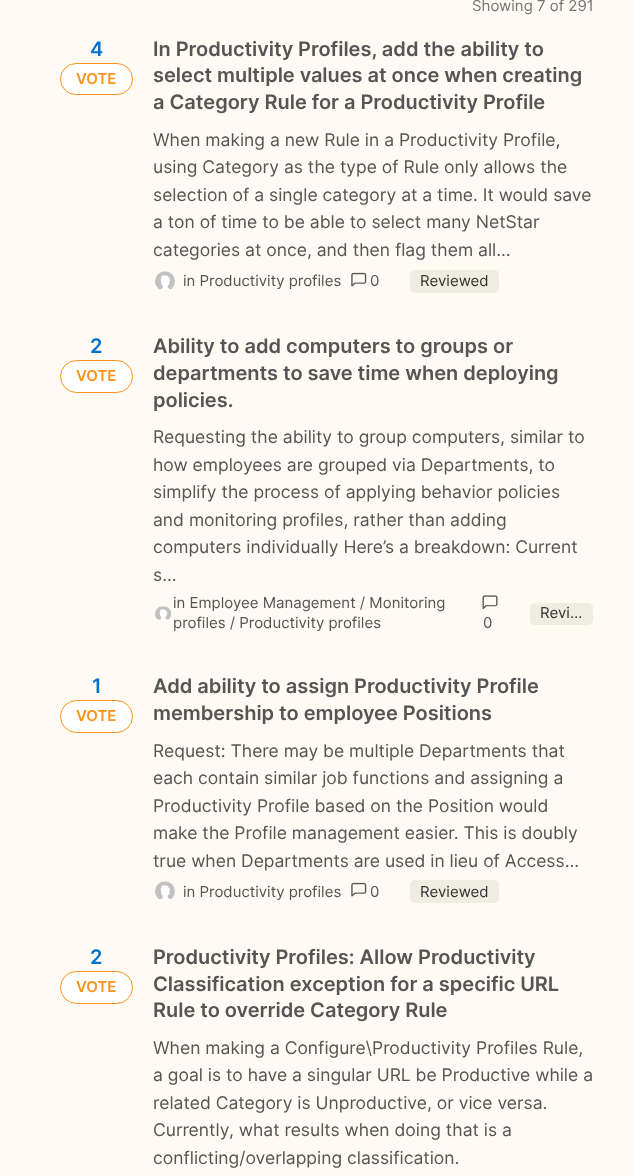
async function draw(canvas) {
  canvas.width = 633;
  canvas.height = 1176;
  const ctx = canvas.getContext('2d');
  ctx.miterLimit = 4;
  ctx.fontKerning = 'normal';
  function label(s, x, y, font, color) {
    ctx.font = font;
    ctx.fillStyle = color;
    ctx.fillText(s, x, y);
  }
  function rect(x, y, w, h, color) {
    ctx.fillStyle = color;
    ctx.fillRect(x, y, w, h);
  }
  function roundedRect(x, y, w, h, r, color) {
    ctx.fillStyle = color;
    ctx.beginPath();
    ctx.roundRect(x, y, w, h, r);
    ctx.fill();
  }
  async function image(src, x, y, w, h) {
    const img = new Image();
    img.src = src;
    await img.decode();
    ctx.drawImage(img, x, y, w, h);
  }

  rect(0, 0, 633, 1176, '#fffaf4');
  label('Showing 7 of 291', 472, 11, '15px Inter', '#767676');
  label('4', 90, 56, '600 20px Inter', '#0073cf');
  ctx.fillStyle = '#fff';
  ctx.beginPath();
  ctx.roundRect(60.5, 63.5, 72, 31, 15.5);
  ctx.fill();
  ctx.strokeStyle = '#f9931a';
  ctx.stroke();
  label('VOTE', 76, 84, '600 15px Inter', '#f9931a');
  label('In Productivity Profiles, add the ability to', 153, 56, '600 20px Inter', '#555');
  label('select multiple values at once when creating', 153, 82, '600 20px Inter', '#555');
  label('a Category Rule for a Productivity Profile', 153, 109, '600 20px Inter', '#555');
  label('When making a new Rule in a Productivity Profile,', 153, 146, '17.5px Inter', '#555');
  label('using Category as the type of Rule only allows the', 153, 173, '17.5px Inter', '#555');
  label('selection of a single category at a time. It would save', 153, 201, '17.5px Inter', '#555');
  label('a ton of time to be able to select many NetStar', 153, 228, '17.5px Inter', '#555');
  label('categories at once, and then flag them all...', 153, 256, '17.5px Inter', '#555');
  await image('assets/img1.png', 155, 271, 20, 20);
  label('in Productivity profiles', 183, 286, '15px Inter', '#555');
  await image('assets/img2.png', 351, 272, 16, 15);
  label('0', 370, 286, '15px Inter', '#555');
  roundedRect(410, 270, 89, 23, 5, '#efece1');
  label('Reviewed', 420, 286, '15px Inter', '#333');
  label('2', 90, 353, '600 20px Inter', '#0073cf');
  ctx.fillStyle = '#fff';
  ctx.beginPath();
  ctx.roundRect(60.5, 360.5, 72, 32, 16);
  ctx.fill();
  ctx.stroke();
  label('VOTE', 76, 381, '600 15px Inter', '#f9931a');
  label('Ability to add computers to groups or', 153, 353, '600 20px Inter', '#555');
  label('departments to save time when deploying', 153, 380, '600 20px Inter', '#555');
  label('policies.', 153, 407, '600 20px Inter', '#555');
  label('Requesting the ability to group computers, similar to', 153, 443, '17.5px Inter', '#555');
  label('how employees are grouped via Departments, to', 153, 471, '17.5px Inter', '#555');
  label('simplify the process of applying behavior policies', 153, 498, '17.5px Inter', '#555');
  label('and monitoring profiles, rather than adding', 153, 526, '17.5px Inter', '#555');
  label('computers individually Here’s a breakdown: Current', 153, 553, '17.5px Inter', '#555');
  label('s...', 153, 581, '17.5px Inter', '#555');
  await image('assets/img3.png', 155, 606, 16, 15);
  label('in Employee Management / Monitoring', 173, 608, '15px Inter', '#555');
  label('profiles / Productivity profiles', 173, 628, '15px Inter', '#555');
  roundedRect(530, 603, 63, 22, 5, '#efece1');
  label('Revi…', 540, 618, '15px Inter', '#333');
  await image('assets/img4.png', 482, 595, 16, 14);
  label('0', 483, 628, '15px Inter', '#555');
  label('1', 92, 693, '600 20px Inter', '#0073cf');
  ctx.fillStyle = '#fff';
  ctx.beginPath();
  ctx.roundRect(60.5, 700.5, 72, 32, 16);
  ctx.fill();
  ctx.stroke();
  label('VOTE', 76, 721, '600 15px Inter', '#f9931a');
  label('Add ability to assign Productivity Profile', 153, 693, '600 20px Inter', '#555');
  label('membership to employee Positions', 153, 720, '600 20px Inter', '#555');
  label('Request: There may be multiple Departments that', 153, 757, '17.5px Inter', '#555');
  label('each contain similar job functions and assigning a', 153, 784, '17.5px Inter', '#555');
  label('Productivity Profile based on the Position would', 153, 812, '17.5px Inter', '#555');
  label('make the Profile management easier. This is doubly', 153, 839, '17.5px Inter', '#555');
  label('true when Departments are used in lieu of Access...', 153, 867, '17.5px Inter', '#555');
  await image('assets/img1.png', 155, 881, 20, 20);
  label('in Productivity profiles', 183, 897, '15px Inter', '#555');
  await image('assets/img2.png', 351, 882, 16, 15);
  label('0', 370, 897, '15px Inter', '#555');
  roundedRect(410, 880, 89, 23, 5, '#efece1');
  label('Reviewed', 420, 897, '15px Inter', '#333');
  label('2', 90, 964, '600 20px Inter', '#0073cf');
  ctx.fillStyle = '#fff';
  ctx.beginPath();
  ctx.roundRect(60.5, 971.5, 72, 32, 16);
  ctx.fill();
  ctx.stroke();
  label('VOTE', 76, 992, '600 15px Inter', '#f9931a');
  label('Productivity Profiles: Allow Productivity', 153, 964, '600 20px Inter', '#555');
  label('Classification exception for a specific URL', 153, 991, '600 20px Inter', '#555');
  label('Rule to override Category Rule', 153, 1017, '600 20px Inter', '#555');
  label('When making a Configure\\Productivity Profiles Rule,', 153, 1054, '17.5px Inter', '#555');
  label('a goal is to have a singular URL be Productive while a', 153, 1081, '17.5px Inter', '#555');
  label('related Category is Unproductive, or vice versa.', 153, 1109, '17.5px Inter', '#555');
  label('Currently, what results when doing that is a', 153, 1136, '17.5px Inter', '#555');
  label('conflicting/overlapping classification.', 153, 1164, '17.5px Inter', '#555');
}

draw(document.querySelector('canvas'));
